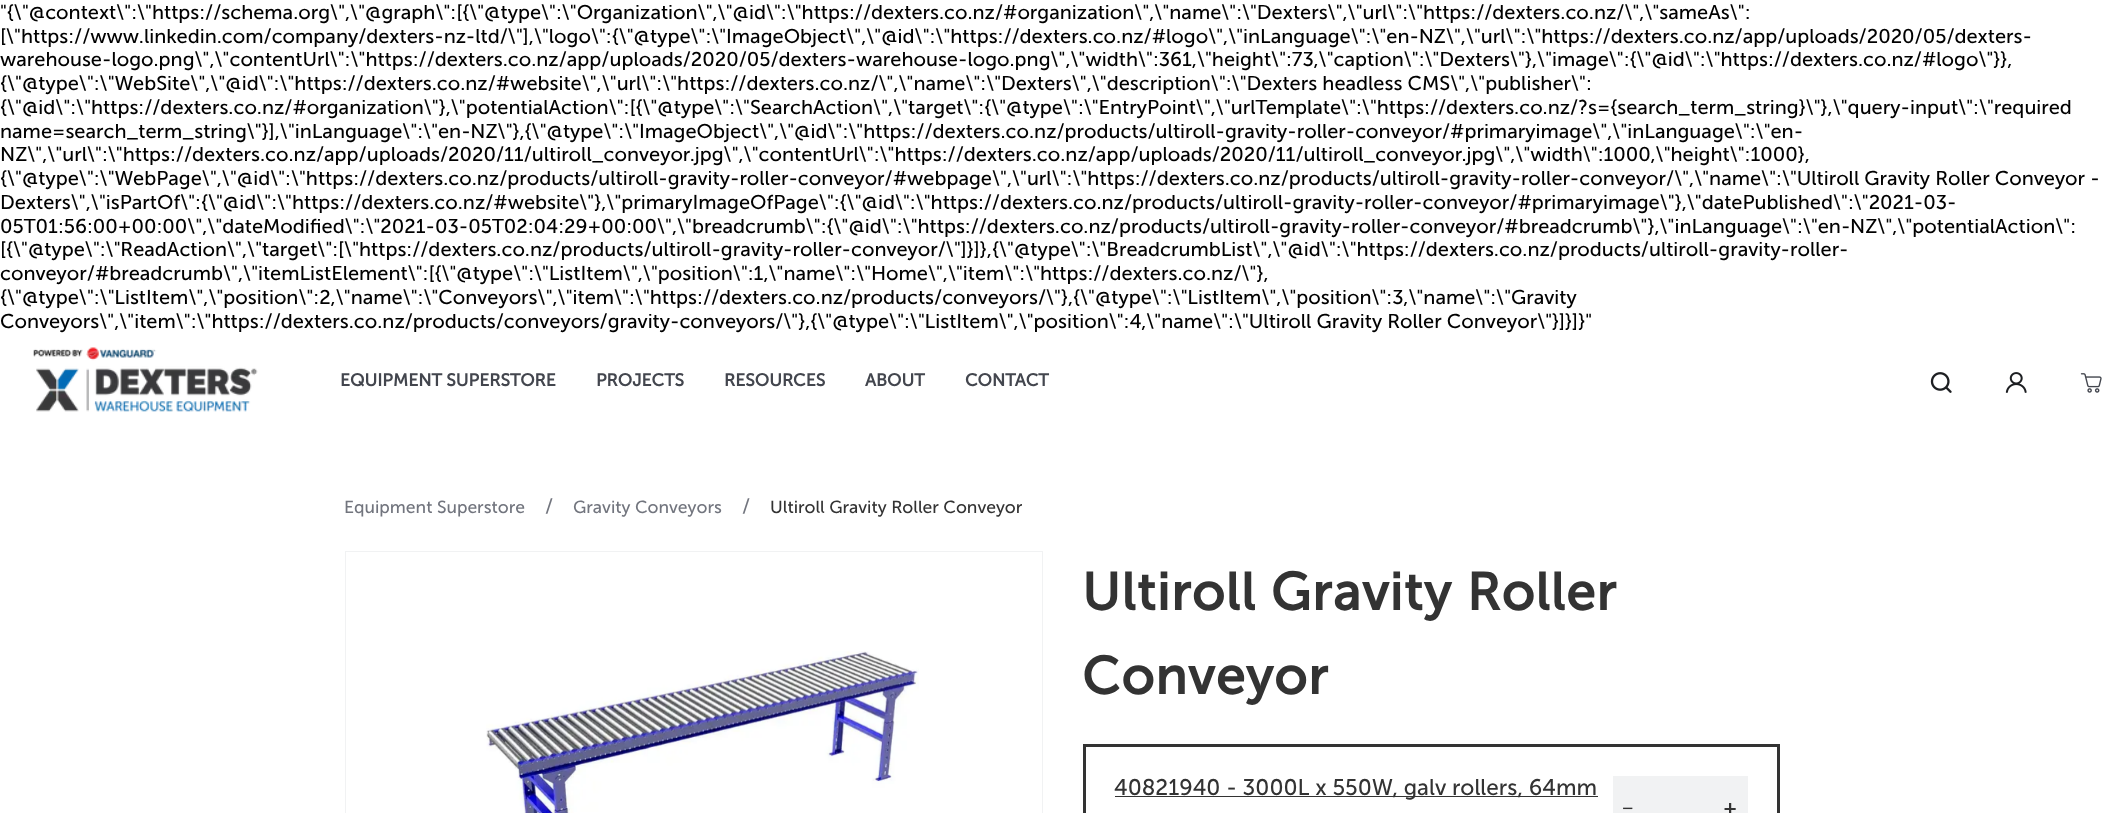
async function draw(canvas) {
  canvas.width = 2123;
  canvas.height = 813;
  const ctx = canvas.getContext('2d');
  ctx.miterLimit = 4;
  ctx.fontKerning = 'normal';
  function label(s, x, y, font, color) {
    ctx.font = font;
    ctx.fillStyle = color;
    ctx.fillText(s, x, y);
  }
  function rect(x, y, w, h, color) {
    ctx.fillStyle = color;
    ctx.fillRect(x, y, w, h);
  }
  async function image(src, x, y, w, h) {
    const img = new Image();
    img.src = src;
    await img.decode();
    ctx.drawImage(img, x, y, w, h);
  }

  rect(0, 0, 2123, 813, '#fff');
  label('"{\\"@context\\":\\"https://schema.org\\",\\"@graph\\":[{\\"@type\\":\\"Organization\\",\\"@id\\":\\"https://dexters.co.nz/#organization\\",\\"name\\":\\"Dexters\\",\\"url\\":\\"https://dexters.co.nz/\\",\\"sameAs\\":', 0, 19, '20px "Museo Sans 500"', '#000');
  label('[\\"https://www.linkedin.com/company/dexters-nz-ltd/\\"],\\"logo\\":{\\"@type\\":\\"ImageObject\\",\\"@id\\":\\"https://dexters.co.nz/#logo\\",\\"inLanguage\\":\\"en-NZ\\",\\"url\\":\\"https://dexters.co.nz/app/uploads/2020/05/dexters-', 0, 43, '20px "Museo Sans 500"', '#000');
  label('warehouse-logo.png\\",\\"contentUrl\\":\\"https://dexters.co.nz/app/uploads/2020/05/dexters-warehouse-logo.png\\",\\"width\\":361,\\"height\\":73,\\"caption\\":\\"Dexters\\"},\\"image\\":{\\"@id\\":\\"https://dexters.co.nz/#logo\\"}},', 0, 66, '20px "Museo Sans 500"', '#000');
  label('{\\"@type\\":\\"WebSite\\",\\"@id\\":\\"https://dexters.co.nz/#website\\",\\"url\\":\\"https://dexters.co.nz/\\",\\"name\\":\\"Dexters\\",\\"description\\":\\"Dexters headless CMS\\",\\"publisher\\":', 0, 90, '20px "Museo Sans 500"', '#000');
  label('{\\"@id\\":\\"https://dexters.co.nz/#organization\\"},\\"potentialAction\\":[{\\"@type\\":\\"SearchAction\\",\\"target\\":{\\"@type\\":\\"EntryPoint\\",\\"urlTemplate\\":\\"https://dexters.co.nz/?s={search_term_string}\\"},\\"query-input\\":\\"required', 0, 114, '20px "Museo Sans 500"', '#000');
  label('name=search_term_string\\"}],\\"inLanguage\\":\\"en-NZ\\"},{\\"@type\\":\\"ImageObject\\",\\"@id\\":\\"https://dexters.co.nz/products/ultiroll-gravity-roller-conveyor/#primaryimage\\",\\"inLanguage\\":\\"en-', 0, 138, '20px "Museo Sans 500"', '#000');
  label('NZ\\",\\"url\\":\\"https://dexters.co.nz/app/uploads/2020/11/ultiroll_conveyor.jpg\\",\\"contentUrl\\":\\"https://dexters.co.nz/app/uploads/2020/11/ultiroll_conveyor.jpg\\",\\"width\\":1000,\\"height\\":1000},', 0, 161, '20px "Museo Sans 500"', '#000');
  label('{\\"@type\\":\\"WebPage\\",\\"@id\\":\\"https://dexters.co.nz/products/ultiroll-gravity-roller-conveyor/#webpage\\",\\"url\\":\\"https://dexters.co.nz/products/ultiroll-gravity-roller-conveyor/\\",\\"name\\":\\"Ultiroll Gravity Roller Conveyor -', 0, 185, '20px "Museo Sans 500"', '#000');
  label('Dexters\\",\\"isPartOf\\":{\\"@id\\":\\"https://dexters.co.nz/#website\\"},\\"primaryImageOfPage\\":{\\"@id\\":\\"https://dexters.co.nz/products/ultiroll-gravity-roller-conveyor/#primaryimage\\"},\\"datePublished\\":\\"2021-03-', 0, 209, '20px "Museo Sans 500"', '#000');
  label('05T01:56:00+00:00\\",\\"dateModified\\":\\"2021-03-05T02:04:29+00:00\\",\\"breadcrumb\\":{\\"@id\\":\\"https://dexters.co.nz/products/ultiroll-gravity-roller-conveyor/#breadcrumb\\"},\\"inLanguage\\":\\"en-NZ\\",\\"potentialAction\\":', 0, 233, '20px "Museo Sans 500"', '#000');
  label('[{\\"@type\\":\\"ReadAction\\",\\"target\\":[\\"https://dexters.co.nz/products/ultiroll-gravity-roller-conveyor/\\"]}]},{\\"@type\\":\\"BreadcrumbList\\",\\"@id\\":\\"https://dexters.co.nz/products/ultiroll-gravity-roller-', 0, 256, '20px "Museo Sans 500"', '#000');
  label('conveyor/#breadcrumb\\",\\"itemListElement\\":[{\\"@type\\":\\"ListItem\\",\\"position\\":1,\\"name\\":\\"Home\\",\\"item\\":\\"https://dexters.co.nz/\\"},', 0, 280, '20px "Museo Sans 500"', '#000');
  label('{\\"@type\\":\\"ListItem\\",\\"position\\":2,\\"name\\":\\"Conveyors\\",\\"item\\":\\"https://dexters.co.nz/products/conveyors/\\"},{\\"@type\\":\\"ListItem\\",\\"position\\":3,\\"name\\":\\"Gravity', 0, 304, '20px "Museo Sans 500"', '#000');
  label('Conveyors\\",\\"item\\":\\"https://dexters.co.nz/products/conveyors/gravity-conveyors/\\"},{\\"@type\\":\\"ListItem\\",\\"position\\":4,\\"name\\":\\"Ultiroll Gravity Roller Conveyor\\"}]}]}"', 0, 328, '20px "Museo Sans 500"', '#000');
  await image('assets/img1.png', 33, 347, 225, 65);
  label('EQUIPMENT SUPERSTORE', 340, 386, 'bold 17.5px "Museo Sans 500"', '#43464e');
  label('PROJECTS', 596, 386, 'bold 17.5px "Museo Sans 500"', '#43464e');
  label('RESOURCES', 724, 386, 'bold 17.5px "Museo Sans 500"', '#43464e');
  label('ABOUT', 865, 386, 'bold 17.5px "Museo Sans 500"', '#43464e');
  label('CONTACT', 965, 386, 'bold 17.5px "Museo Sans 500"', '#43464e');
  await image('assets/img2.png', 1930, 372, 22, 21);
  await image('assets/img3.png', 2005, 372, 22, 21);
  await image('assets/img4.png', 2080, 373, 22, 20);
  label('Equipment Superstore', 344, 513, '17.5px "Museo Sans 500"', '#72757e');
  label('/', 545, 513, '20px "Museo Sans 500"', '#72757e');
  label('Gravity Conveyors', 573, 513, '17.5px "Museo Sans 500"', '#72757e');
  label('/', 742, 513, '20px "Museo Sans 500"', '#72757e');
  label('Ultiroll Gravity Roller Conveyor', 770, 513, '17.5px "Museo Sans 500"', '#333');
  ctx.strokeStyle = '#f1f2f3';
  ctx.strokeRect(345.5, 551.5, 697, 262);
  await image('assets/img5.png', 486, 651, 433, 162);
  ctx.letterSpacing = '1.25px';
  label('Ultiroll Gravity Roller', 1082, 610, 'bold 52.5px "Museo Sans 500"', '#333');
  label('Conveyor', 1082, 694, 'bold 52.5px "Museo Sans 500"', '#333');
  ctx.strokeStyle = '#333';
  ctx.lineWidth = 3;
  ctx.strokeRect(1084.5, 745.5, 694, 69);
  rect(1115, 796, 483, 1, '#333');
  ctx.letterSpacing = '0px';
  label('40821940 - 3000L x 550W, galv rollers, 64mm', 1114, 795, '22.5px "Museo Sans 500"', '#333');
  rect(1613, 776, 135, 37, '#f1f2f3');
  label('−', 1622, 815, 'bold 20px Liberation Serif', '#333');
  label('+', 1723, 815, 'bold 20px "Museo Sans 500"', '#333');
}

draw(document.querySelector('canvas'));
